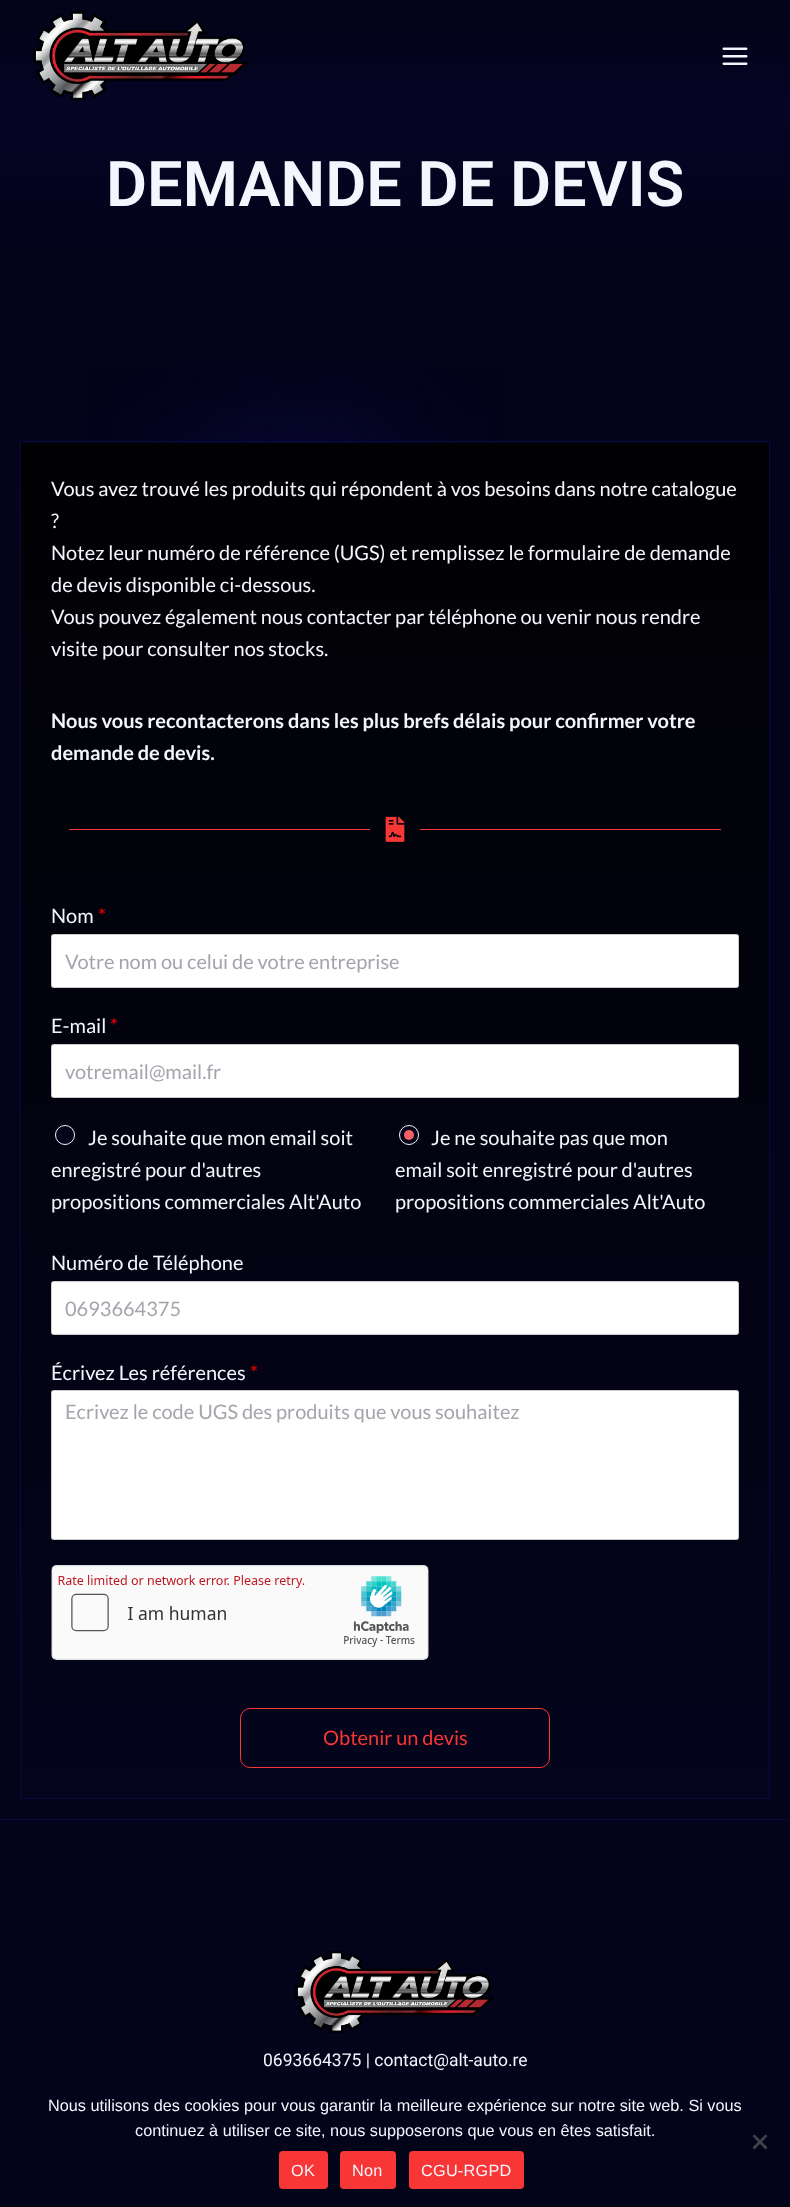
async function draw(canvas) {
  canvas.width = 790;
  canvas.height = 2207;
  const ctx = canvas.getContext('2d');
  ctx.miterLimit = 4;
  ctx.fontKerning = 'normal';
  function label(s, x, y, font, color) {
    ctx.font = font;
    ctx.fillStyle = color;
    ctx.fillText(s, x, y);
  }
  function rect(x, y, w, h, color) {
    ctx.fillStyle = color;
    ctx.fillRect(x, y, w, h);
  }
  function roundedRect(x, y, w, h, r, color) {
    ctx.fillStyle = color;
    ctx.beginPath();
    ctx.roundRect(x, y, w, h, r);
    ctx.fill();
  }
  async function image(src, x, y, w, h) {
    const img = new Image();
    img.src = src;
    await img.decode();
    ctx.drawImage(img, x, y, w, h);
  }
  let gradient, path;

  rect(0, 0, 790, 2207, '#030319');
  gradient = ctx.createLinearGradient(395, 281, 395, -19);
  gradient.addColorStop(0, '#030319');
  gradient.addColorStop(1, '#06052d');
  ctx.fillStyle = gradient;
  ctx.fillRect(0, 23, 790, 221);
  gradient = ctx.createLinearGradient(395, 0, 395, 111);
  gradient.addColorStop(0.2, '#030319');
  gradient.addColorStop(1, '#03031900');
  ctx.fillStyle = gradient;
  ctx.fillRect(0, 23, 790, 70);
  await image('assets/img1.png', 33, 11, 216, 90);
  await image('assets/img2.png', 722, 47, 26, 18);
  label('DEMANDE DE DEVIS', 106, 206, '600 63.1px Roboto', '#f5f5fe');
  await image('assets/img3.png', 87, 365, 416, 78);
  gradient = ctx.createLinearGradient(395, 443, 395, 1798);
  gradient.addColorStop(0, '#010103');
  gradient.addColorStop(1, '#04041d');
  ctx.fillStyle = gradient;
  ctx.fillRect(21, 443, 748, 1355);
  ctx.strokeStyle = '#090845';
  ctx.strokeRect(20.5, 441.5, 749, 1357);
  label('Vous avez trouvé les produits qui répondent à vos besoins dans notre catalogue', 51, 496, '20px Lato', '#f5f5fe');
  label('?', 51, 528, '20px Lato', '#f5f5fe');
  label('Notez leur numéro de référence (UGS) et remplissez le formulaire de demande', 51, 560, '20px Lato', '#f5f5fe');
  label('de devis disponible ci-dessous.', 51, 592, '20px Lato', '#f5f5fe');
  label('Vous pouvez également nous contacter par téléphone ou venir nous rendre', 51, 624, '20px Lato', '#f5f5fe');
  label('visite pour consulter nos stocks.', 51, 656, '20px Lato', '#f5f5fe');
  label('Nous vous recontacterons dans les plus brefs délais pour confirmer votre', 51, 728, 'bold 20px Lato', '#f5f5fe');
  label('demande de devis.', 51, 760, 'bold 20px Lato', '#f5f5fe');
  rect(69, 829, 301, 1, '#f83636');
  await image('assets/img4.png', 385, 816, 20, 26);
  rect(420, 829, 301, 1, '#f83636');
  label('Nom', 51, 923, '20px Lato', '#f5f5fe');
  label('*', 98, 923, '20px Lato', '#f00');
  ctx.fillStyle = '#fff';
  ctx.beginPath();
  ctx.roundRect(51.5, 934.5, 687, 53, 2);
  ctx.fill();
  ctx.strokeStyle = '#ccc';
  ctx.stroke();
  label('Votre nom ou celui de votre entreprise', 65, 969, '20px Lato', '#a4a4ac');
  label('E-mail', 51, 1033, '20px Lato', '#f5f5fe');
  label('*', 110, 1033, '20px Lato', '#f00');
  ctx.fillStyle = '#fff';
  ctx.beginPath();
  ctx.roundRect(51.5, 1044.5, 687, 53, 2);
  ctx.fill();
  ctx.stroke();
  label('votremail@mail.fr', 65, 1079, '20px Lato', '#a4a4ac');
  ctx.fillStyle = '#030319';
  ctx.beginPath();
  ctx.arc(65, 1135, 9.5, 0, 2 * Math.PI);
  ctx.fill();
  ctx.strokeStyle = '#f5f5fe';
  ctx.stroke();
  label('Je souhaite que mon email soit', 88, 1145, '20px Lato', '#f5f5fe');
  label('enregistré pour d\'autres', 51, 1177, '20px Lato', '#f5f5fe');
  label('propositions commerciales Alt\'Auto', 51, 1209, '20px Lato', '#f5f5fe');
  ctx.fillStyle = '#030319';
  ctx.beginPath();
  ctx.arc(409, 1135, 9.5, 0, 2 * Math.PI);
  ctx.fill();
  ctx.stroke();
  ctx.fillStyle = '#f95e65';
  ctx.beginPath();
  ctx.arc(409, 1135, 5, 0, 2 * Math.PI);
  ctx.fill();
  label('Je ne souhaite pas que mon', 431, 1145, '20px Lato', '#f5f5fe');
  label('email soit enregistré pour d\'autres', 395, 1177, '20px Lato', '#f5f5fe');
  label('propositions commerciales Alt\'Auto', 395, 1209, '20px Lato', '#f5f5fe');
  label('Numéro de Téléphone', 51, 1270, '20px Lato', '#f5f5fe');
  ctx.fillStyle = '#fff';
  ctx.beginPath();
  ctx.roundRect(51.5, 1281.5, 687, 53, 2);
  ctx.fill();
  ctx.strokeStyle = '#ccc';
  ctx.stroke();
  label('0693664375', 65, 1316, '20px Lato', '#a4a4ac');
  label('Écrivez Les références', 51, 1380, '20px Lato', '#f5f5fe');
  label('*', 250, 1380, '20px Lato', '#f00');
  ctx.fillStyle = '#fff';
  ctx.beginPath();
  ctx.roundRect(51.5, 1390.5, 687, 149, 2);
  ctx.fill();
  ctx.stroke();
  label('Ecrivez le code UGS des produits que vous souhaitez', 65, 1419, '20px Lato', '#a4a4ac');
  await image('assets/img5.png', 51, 1565, 378, 95);
  ctx.beginPath();
  ctx.roundRect(240.5, 1708.5, 309, 59, 9.5);
  ctx.strokeStyle = '#f83636';
  ctx.stroke();
  label('Obtenir un devis', 323, 1745, '20px Lato', '#f83636');
  rect(0, 1819, 790, 1, '#090845');
  await image('assets/img6.png', 295, 1951, 199, 82);
  label('0693664375 | contact@alt-auto.re', 263, 2066, '17.5px Roboto', '#f5f5fe');
  label('Nous utilisons des cookies pour vous garantir la meilleure expérience sur notre site web. Si vous', 48, 2111, '16.25px Liberation Sans', '#f5f5fe');
  label('continuez à utiliser ce site, nous supposerons que vous en êtes satisfait.', 135, 2136, '16.25px Liberation Sans', '#f5f5fe');
  ctx.fillStyle = '#42424d';
  path = new Path2D('M765.5 2134.5L767.5 2136L754.5 2149.5L752.5 2147.5Z');
  ctx.fill(path);
  path = new Path2D('M752.5 2136L754.5 2134.5L767.5 2147.5L765.5 2149.5Z');
  ctx.fill(path);
  roundedRect(279, 2151, 49, 38, 4, '#f83636');
  ctx.letterSpacing = '0.25px';
  label('OK', 291, 2176, '16.25px Liberation Sans', '#f5f5fe');
  roundedRect(340, 2151, 56, 38, 4, '#f83636');
  label('Non', 352, 2176, '16.25px Liberation Sans', '#f5f5fe');
  roundedRect(409, 2151, 115, 38, 4, '#f83636');
  label('CGU-RGPD', 421, 2176, '16.25px Liberation Sans', '#f5f5fe');
}

draw(document.querySelector('canvas'));
